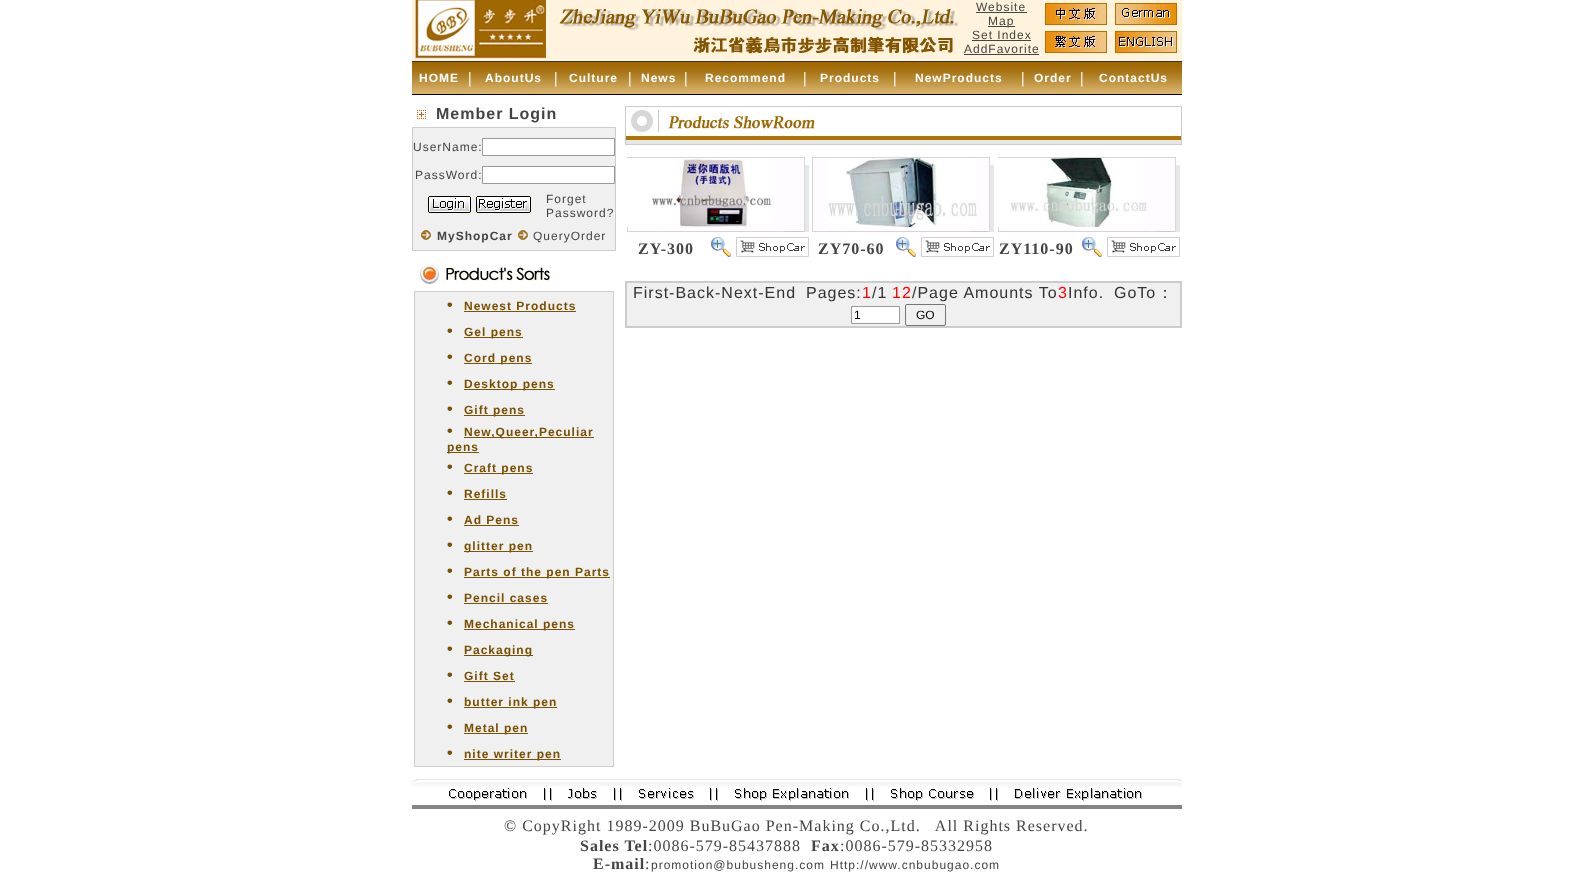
async function draw(canvas) {
  canvas.width = 1593;
  canvas.height = 879;
  const ctx = canvas.getContext('2d');
  ctx.miterLimit = 4;
  ctx.fontKerning = 'normal';
  function label(s, x, y, font, color) {
    ctx.font = font;
    ctx.fillStyle = color;
    ctx.fillText(s, x, y);
  }
  function rect(x, y, w, h, color) {
    ctx.fillStyle = color;
    ctx.fillRect(x, y, w, h);
  }
  async function image(src, x, y, w, h) {
    const img = new Image();
    img.src = src;
    await img.decode();
    ctx.drawImage(img, x, y, w, h);
  }

  rect(0, 0, 1593, 879, '#fff');
  rect(412, 0, 770, 61, '#fff3dd');
  await image('assets/img1.png', 415, 0, 544, 59);
  ctx.letterSpacing = '1px';
  label('Website', 976, 11, '12px Liberation Sans', '#444');
  rect(976, 12, 51, 1, '#444');
  rect(988, 26, 27, 1, '#444');
  label('Map', 988, 25, '12px Liberation Sans', '#444');
  label('Set Index', 972, 39, '12px Liberation Sans', '#444');
  rect(972, 40, 59, 1, '#444');
  label('AddFavorite', 964, 53, '12px Liberation Sans', '#444');
  rect(964, 54, 75, 1, '#444');
  await image('assets/img2.png', 1045, 3, 62, 22);
  await image('assets/img3.png', 1115, 3, 62, 22);
  await image('assets/img4.png', 1045, 31, 62, 22);
  await image('assets/img5.png', 1115, 31, 62, 22);
  rect(412, 61, 770, 1, '#333');
  await image('assets/img6.png', 412, 62, 770, 32);
  label('HOME', 419, 82, 'bold 12px Liberation Sans', '#fff');
  label('|', 468, 83, 'bold 16px Liberation Serif', '#fff');
  label('AboutUs', 485, 82, 'bold 12px Liberation Sans', '#fff');
  label('|', 554, 83, 'bold 16px Liberation Serif', '#fff');
  label('Culture', 569, 82, 'bold 12px Liberation Sans', '#fff');
  label('|', 628, 83, 'bold 16px Liberation Serif', '#fff');
  label('News', 641, 82, 'bold 12px Liberation Sans', '#fff');
  label('|', 684, 83, 'bold 16px Liberation Serif', '#fff');
  label('Recommend', 705, 82, 'bold 12px Liberation Sans', '#fff');
  label('|', 803, 83, 'bold 16px Liberation Serif', '#fff');
  label('Products', 820, 82, 'bold 12px Liberation Sans', '#fff');
  label('|', 893, 83, 'bold 16px Liberation Serif', '#fff');
  label('NewProducts', 915, 82, 'bold 12px Liberation Sans', '#fff');
  label('|', 1021, 83, 'bold 16px Liberation Serif', '#fff');
  label('Order', 1034, 82, 'bold 12px Liberation Sans', '#fff');
  label('|', 1080, 83, 'bold 16px Liberation Serif', '#fff');
  label('ContactUs', 1099, 82, 'bold 12px Liberation Sans', '#fff');
  rect(412, 94, 770, 1, '#000');
  await image('assets/img7.png', 417, 110, 9, 9);
  label('Member Login', 436, 119, 'bold 16px Liberation Sans', '#444');
  ctx.fillStyle = '#f0f0f0';
  ctx.beginPath();
  ctx.rect(412.5, 127.5, 203, 123);
  ctx.fill();
  ctx.strokeStyle = '#ccc';
  ctx.stroke();
  label('UserName:', 413, 151, '12px Liberation Sans', '#444');
  ctx.fillStyle = '#fff';
  ctx.beginPath();
  ctx.rect(482.5, 138.5, 132, 17);
  ctx.fill();
  ctx.strokeStyle = '#999';
  ctx.stroke();
  label('PassWord:', 415, 179, '12px Liberation Sans', '#444');
  ctx.fillStyle = '#fff';
  ctx.beginPath();
  ctx.rect(482.5, 166.5, 132, 17);
  ctx.fill();
  ctx.stroke();
  await image('assets/img8.png', 428, 196, 43, 17);
  await image('assets/img9.png', 476, 196, 55, 17);
  label('Forget', 546, 203, '12px Liberation Sans', '#444');
  label('Password?', 546, 217, '12px Liberation Sans', '#444');
  await image('assets/img10.png', 421, 230, 10, 10);
  label('MyShopCar', 437, 240, 'bold 12px Liberation Sans', '#444');
  await image('assets/img10.png', 518, 230, 10, 10);
  label('QueryOrder', 533, 240, '12px Liberation Sans', '#444');
  await image('assets/img11.png', 420, 265, 131, 19);
  ctx.fillStyle = '#f0f0f0';
  ctx.beginPath();
  ctx.rect(414.5, 291.5, 199, 475);
  ctx.fill();
  ctx.strokeStyle = '#ccc';
  ctx.stroke();
  label('•', 447, 310, 'bold 16px Liberation Sans', '#794f00');
  label('Newest Products', 464, 310, 'bold 12px Liberation Sans', '#794f00');
  rect(464, 311, 112, 1, '#7d5200');
  label('•', 447, 336, 'bold 16px Liberation Sans', '#794f00');
  rect(464, 337, 59, 1, '#7d5200');
  label('Gel pens', 464, 336, 'bold 12px Liberation Sans', '#794f00');
  label('•', 447, 362, 'bold 16px Liberation Sans', '#794f00');
  rect(464, 363, 68, 1, '#7d5200');
  label('Cord pens', 464, 362, 'bold 12px Liberation Sans', '#794f00');
  label('•', 447, 388, 'bold 16px Liberation Sans', '#794f00');
  rect(464, 389, 91, 1, '#7d5200');
  label('Desktop pens', 464, 388, 'bold 12px Liberation Sans', '#794f00');
  label('•', 447, 414, 'bold 16px Liberation Sans', '#794f00');
  rect(464, 415, 61, 1, '#7d5200');
  label('Gift pens', 464, 414, 'bold 12px Liberation Sans', '#794f00');
  label('•', 447, 436, 'bold 16px Liberation Sans', '#794f00');
  rect(464, 437, 130, 1, '#7d5200');
  label('New,Queer,Peculiar', 464, 436, 'bold 12px Liberation Sans', '#794f00');
  rect(447, 452, 32, 1, '#7d5200');
  label('pens', 447, 451, 'bold 12px Liberation Sans', '#794f00');
  label('•', 447, 472, 'bold 16px Liberation Sans', '#794f00');
  rect(464, 473, 69, 1, '#7d5200');
  label('Craft pens', 464, 472, 'bold 12px Liberation Sans', '#794f00');
  label('•', 447, 498, 'bold 16px Liberation Sans', '#794f00');
  label('Refills', 464, 498, 'bold 12px Liberation Sans', '#794f00');
  rect(464, 499, 43, 1, '#7d5200');
  label('•', 447, 524, 'bold 16px Liberation Sans', '#794f00');
  label('Ad Pens', 464, 524, 'bold 12px Liberation Sans', '#794f00');
  rect(464, 525, 55, 1, '#7d5200');
  label('•', 447, 550, 'bold 16px Liberation Sans', '#794f00');
  rect(464, 551, 69, 1, '#7d5200');
  label('glitter pen', 464, 550, 'bold 12px Liberation Sans', '#794f00');
  label('•', 447, 576, 'bold 16px Liberation Sans', '#794f00');
  rect(464, 577, 146, 1, '#7d5200');
  label('Parts of the pen Parts', 464, 576, 'bold 12px Liberation Sans', '#794f00');
  label('•', 447, 602, 'bold 16px Liberation Sans', '#794f00');
  label('Pencil cases', 464, 602, 'bold 12px Liberation Sans', '#794f00');
  rect(464, 603, 84, 1, '#7d5200');
  label('•', 447, 628, 'bold 16px Liberation Sans', '#794f00');
  rect(464, 629, 111, 1, '#7d5200');
  label('Mechanical pens', 464, 628, 'bold 12px Liberation Sans', '#794f00');
  label('•', 447, 654, 'bold 16px Liberation Sans', '#794f00');
  rect(464, 655, 69, 1, '#7d5200');
  label('Packaging', 464, 654, 'bold 12px Liberation Sans', '#794f00');
  label('•', 447, 680, 'bold 16px Liberation Sans', '#794f00');
  label('Gift Set', 464, 680, 'bold 12px Liberation Sans', '#794f00');
  rect(464, 681, 51, 1, '#7d5200');
  label('•', 447, 706, 'bold 16px Liberation Sans', '#794f00');
  rect(464, 707, 93, 1, '#7d5200');
  label('butter ink pen', 464, 706, 'bold 12px Liberation Sans', '#794f00');
  label('•', 447, 732, 'bold 16px Liberation Sans', '#794f00');
  rect(464, 733, 64, 1, '#7d5200');
  label('Metal pen', 464, 732, 'bold 12px Liberation Sans', '#794f00');
  label('•', 447, 758, 'bold 16px Liberation Sans', '#794f00');
  rect(464, 759, 97, 1, '#7d5200');
  label('nite writer pen', 464, 758, 'bold 12px Liberation Sans', '#794f00');
  ctx.strokeRect(625.5, 106.5, 556, 38);
  await image('assets/img12.png', 628, 107, 187, 26);
  rect(626, 136, 555, 4, '#af7301');
  rect(626, 140, 555, 4, '#e6e6e6');
  await image('assets/img13.png', 627, 157, 182, 75);
  await image('assets/img14.png', 627, 158, 147, 69);
  label('ZY-300', 638, 254, 'bold 16px Liberation Serif', '#444');
  await image('assets/img15.png', 711, 237, 20, 20);
  await image('assets/img16.png', 736, 237, 73, 20);
  await image('assets/img13.png', 812, 157, 182, 75);
  await image('assets/img17.png', 828, 158, 149, 69);
  label('ZY70-60', 818, 254, 'bold 16px Liberation Serif', '#444');
  await image('assets/img15.png', 896, 237, 20, 20);
  await image('assets/img16.png', 921, 237, 73, 20);
  await image('assets/img13.png', 998, 157, 182, 75);
  await image('assets/img18.png', 998, 158, 149, 69);
  label('ZY110-90', 999, 254, 'bold 16px Liberation Serif', '#444');
  await image('assets/img15.png', 1082, 237, 20, 20);
  await image('assets/img16.png', 1107, 237, 73, 20);
  rect(627, 283, 553, 43, '#f0f0f0');
  ctx.strokeRect(625.5, 281.5, 556, 46);
  ctx.strokeRect(626.5, 282.5, 554, 44);
  label('First-Back-Next-End', 633, 298, '16px Liberation Sans', '#333');
  label('Pages:', 806, 298, '16px Liberation Sans', '#333');
  label('1', 862, 298, '16px Liberation Sans', '#f00');
  label('/1', 872, 298, '16px Liberation Sans', '#333');
  label('12', 892, 298, '16px Liberation Sans', '#f00');
  label('/Page Amounts To', 912, 298, '16px Liberation Sans', '#333');
  label('3', 1058, 298, '16px Liberation Sans', '#f00');
  label('Info.', 1068, 298, '16px Liberation Sans', '#333');
  label('GoTo', 1114, 298, '16px Liberation Sans', '#333');
  label('：', 1157, 298, '500 16px WenQuanYi Zen Hei', '#333');
  ctx.fillStyle = '#fff';
  ctx.beginPath();
  ctx.rect(851.5, 306.5, 48, 17);
  ctx.fill();
  ctx.strokeStyle = '#999';
  ctx.stroke();
  ctx.letterSpacing = '0px';
  label('1', 854, 319, '12px Liberation Sans', '#000');
  ctx.beginPath();
  ctx.roundRect(905.5, 304.5, 40, 21, 1.5);
  ctx.strokeStyle = '#767676';
  ctx.stroke();
  label('GO', 916, 319, '12px Liberation Sans', '#000');
  await image('assets/img19.png', 412, 779, 770, 30);
  ctx.letterSpacing = '1px';
  label('© CopyRight 1989-2009 BuBuGao Pen-Making Co.,Ltd.   All Rights Reserved.', 504, 831, '16px Liberation Serif', '#444');
  label('Sales Tel', 580, 851, 'bold 16px Liberation Serif', '#444');
  label(':0086-579-85437888', 648, 851, '16px Liberation Serif', '#444');
  label('Fax', 811, 851, 'bold 16px Liberation Serif', '#444');
  label(':0086-579-85332958', 840, 851, '16px Liberation Serif', '#444');
  label('E-mail', 593, 869, 'bold 16px Liberation Serif', '#444');
  label(':', 645, 869, '16px Liberation Serif', '#444');
  label('promotion@bubusheng.com', 651, 869, '12px Liberation Sans', '#444');
  label('Http://www.cnbubugao.com', 830, 869, '12px Liberation Sans', '#444');
}

draw(document.querySelector('canvas'));
